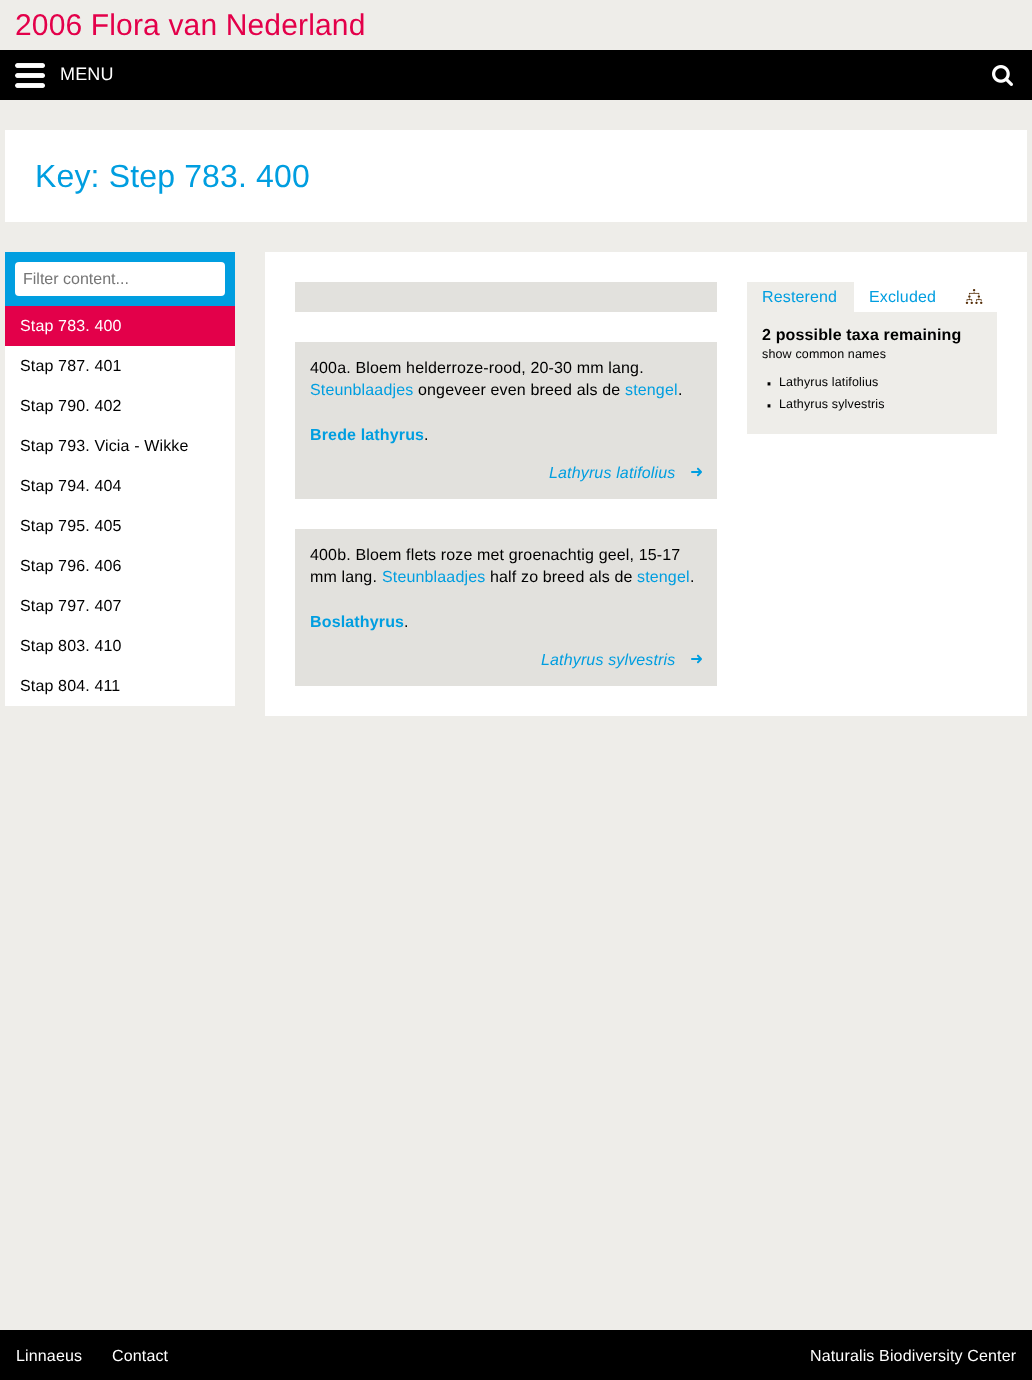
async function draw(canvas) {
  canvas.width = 1032;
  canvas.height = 1380;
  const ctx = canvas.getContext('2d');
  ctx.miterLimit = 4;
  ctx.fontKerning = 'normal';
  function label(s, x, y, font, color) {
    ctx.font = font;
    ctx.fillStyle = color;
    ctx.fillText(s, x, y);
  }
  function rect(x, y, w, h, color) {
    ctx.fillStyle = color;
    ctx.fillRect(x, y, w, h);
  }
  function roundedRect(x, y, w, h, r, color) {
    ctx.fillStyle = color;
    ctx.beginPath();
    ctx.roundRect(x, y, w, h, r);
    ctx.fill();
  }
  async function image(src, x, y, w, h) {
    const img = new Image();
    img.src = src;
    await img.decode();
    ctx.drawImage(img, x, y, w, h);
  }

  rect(0, 0, 1032, 1380, '#eeede9');
  ctx.letterSpacing = '0.15px';
  label('2006 Flora van Nederland', 15, 35, '30px Liberation Sans', '#e3004a');
  rect(0, 50, 1032, 50, '#000');
  await image('assets/img1.png', 15, 63, 30, 25);
  label('MENU', 60, 80, '18px Liberation Sans', '#fff');
  await image('assets/img2.png', 992, 65, 21, 21);
  rect(5, 130, 1022, 92, '#fff');
  label('Key: Step 783. 400', 35, 187, '32px Liberation Sans', '#009ee0');
  rect(5, 252, 230, 54, '#009ee0');
  roundedRect(15, 262, 210, 34, 4, '#fff');
  ctx.letterSpacing = '0px';
  label('Filter content...', 23, 284, '16px Liberation Sans', '#757575');
  rect(5, 346, 230, 360, '#fff');
  rect(5, 306, 230, 40, '#e3004a');
  ctx.letterSpacing = '0.15px';
  label('Stap 783. 400', 20, 331, '16px Liberation Sans', '#fff');
  label('Stap 787. 401', 20, 371, '16px Liberation Sans', '#000');
  label('Stap 790. 402', 20, 411, '16px Liberation Sans', '#000');
  label('Stap 793. Vicia - Wikke', 20, 451, '16px Liberation Sans', '#000');
  label('Stap 794. 404', 20, 491, '16px Liberation Sans', '#000');
  label('Stap 795. 405', 20, 531, '16px Liberation Sans', '#000');
  label('Stap 796. 406', 20, 571, '16px Liberation Sans', '#000');
  label('Stap 797. 407', 20, 611, '16px Liberation Sans', '#000');
  label('Stap 803. 410', 20, 651, '16px Liberation Sans', '#000');
  label('Stap 804. 411', 20, 691, '16px Liberation Sans', '#000');
  rect(265, 252, 762, 464, '#fff');
  rect(295, 282, 422, 30, '#e2e1dd');
  rect(295, 342, 422, 157, '#e2e1dd');
  label('400a. Bloem helderroze-rood, 20-30 mm lang.', 310, 373, '16px Liberation Sans', '#000');
  label('Steunblaadjes', 310, 395, '16px Liberation Sans', '#009ee0');
  label('ongeveer even breed als de', 418, 395, '16px Liberation Sans', '#000');
  label('stengel', 625, 395, '16px Liberation Sans', '#009ee0');
  label('.', 678, 395, '16px Liberation Sans', '#000');
  label('Brede lathyrus', 310, 440, 'bold 16px Liberation Sans', '#009ee0');
  label('.', 424, 440, '16px Liberation Sans', '#000');
  label('Lathyrus latifolius', 549, 478, 'italic 16px Liberation Sans', '#009ee0');
  await image('assets/img3.png', 691, 467, 11, 10);
  rect(295, 529, 422, 157, '#e2e1dd');
  label('400b. Bloem flets roze met groenachtig geel, 15-17', 310, 560, '16px Liberation Sans', '#000');
  label('mm lang.', 310, 582, '16px Liberation Sans', '#000');
  label('Steunblaadjes', 382, 582, '16px Liberation Sans', '#009ee0');
  label('half zo breed als de', 490, 582, '16px Liberation Sans', '#000');
  label('stengel', 637, 582, '16px Liberation Sans', '#009ee0');
  label('.', 690, 582, '16px Liberation Sans', '#000');
  label('Boslathyrus', 310, 627, 'bold 16px Liberation Sans', '#009ee0');
  label('.', 404, 627, '16px Liberation Sans', '#000');
  label('Lathyrus sylvestris', 541, 665, 'italic 16px Liberation Sans', '#009ee0');
  await image('assets/img3.png', 691, 654, 11, 10);
  rect(747, 282, 107, 30, '#eeede9');
  label('Resterend', 762, 302, '16px Liberation Sans', '#009ee0');
  label('Excluded', 869, 302, '16px Liberation Sans', '#009ee0');
  await image('assets/img4.png', 965, 289, 18, 15);
  rect(747, 312, 250, 122, '#eeede9');
  label('2 possible taxa remaining', 762, 340, 'bold 16px Liberation Sans', '#000');
  label('show common names', 762, 358, '12.5px Liberation Sans', '#000');
  label('·', 764, 392, '30px Liberation Sans', '#000');
  label('Lathyrus latifolius', 779, 386, '12.5px Liberation Sans', '#000');
  label('·', 764, 414, '30px Liberation Sans', '#000');
  label('Lathyrus sylvestris', 779, 408, '12.5px Liberation Sans', '#000');
  rect(0, 1330, 1032, 50, '#000');
  label('Linnaeus', 16, 1361, '16px Liberation Sans', '#fff');
  label('Contact', 112, 1361, '16px Liberation Sans', '#fff');
  label('Naturalis Biodiversity Center', 810, 1361, '16px Liberation Sans', '#fff');
}

draw(document.querySelector('canvas'));
